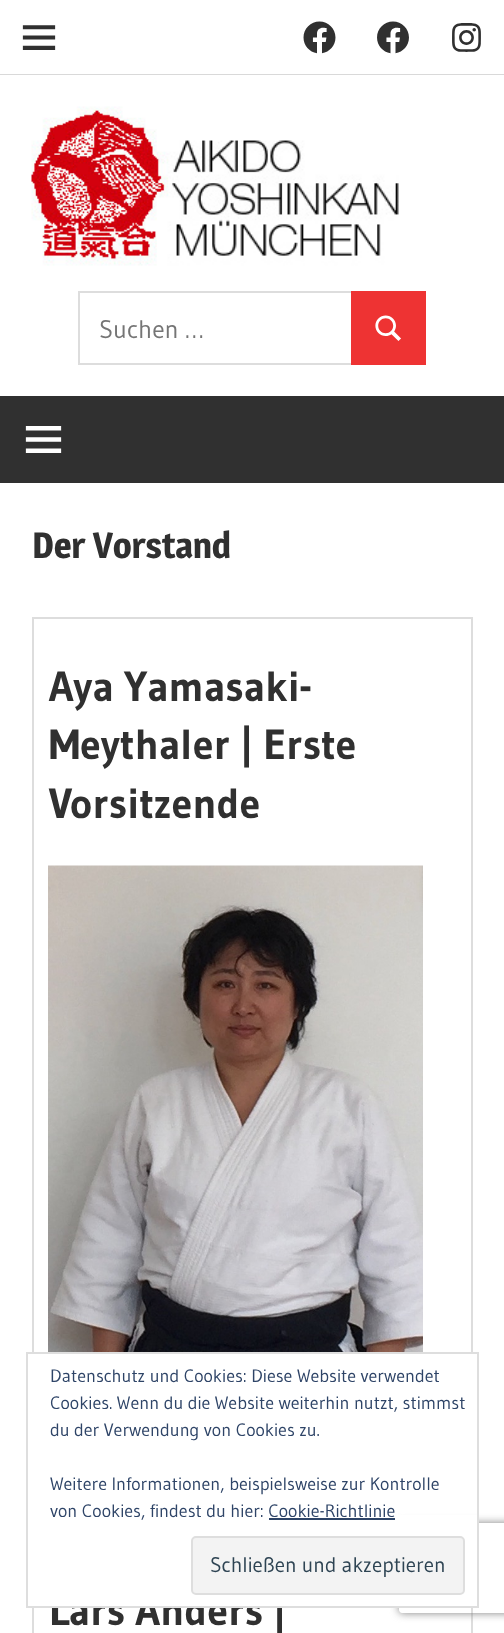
async function draw(canvas) {
  canvas.width = 504;
  canvas.height = 1633;
  const ctx = canvas.getContext('2d');
  ctx.miterLimit = 4;
  ctx.fontKerning = 'normal';
  function label(s, x, y, font, color) {
    ctx.font = font;
    ctx.fillStyle = color;
    ctx.fillText(s, x, y);
  }
  function rect(x, y, w, h, color) {
    ctx.fillStyle = color;
    ctx.fillRect(x, y, w, h);
  }
  async function image(src, x, y, w, h) {
    const img = new Image();
    img.src = src;
    await img.decode();
    ctx.drawImage(img, x, y, w, h);
  }
  let path;

  rect(0, 0, 504, 1633, '#fff');
  rect(0, 74, 504, 1, '#d9d9d9');
  await image('assets/img1.png', 22, 25, 34, 25);
  await image('assets/img2.png', 303, 21, 33, 33);
  await image('assets/img3.png', 377, 21, 32, 33);
  await image('assets/img4.png', 452, 23, 29, 29);
  await image('assets/img5.png', 31, 106, 368, 160);
  ctx.strokeStyle = '#ddd';
  ctx.lineWidth = 2;
  ctx.strokeRect(79, 292, 273, 72);
  label('Suchen …', 99, 338, '25.5px Gudea', '#757575');
  rect(351, 291, 75, 74, '#e33');
  await image('assets/img6.png', 375, 315, 26, 26);
  rect(0, 396, 504, 87, '#303030');
  await image('assets/img7.png', 25, 426, 37, 27);
  label('Der Vorstand', 32, 558, 'bold 36px Magra', '#303030');
  rect(32, 617, 441, 2, '#ddd');
  rect(471, 617, 2, 735, '#ddd');
  rect(32, 617, 2, 735, '#ddd');
  label('Aya Yamasaki-', 49, 701, 'bold 42px Gudea', '#303030');
  label('Meythaler | Erste', 49, 759, 'bold 42px Gudea', '#303030');
  label('Vorsitzende', 49, 818, 'bold 42px Gudea', '#303030');
  await image('assets/img8.png', 48, 865, 375, 487);
  rect(471, 1608, 2, 25, '#ddd');
  rect(32, 1608, 2, 25, '#ddd');
  label('Lars Anders |', 49, 1625, 'bold 42px Gudea', '#303030');
  ctx.save();
  path = new Path2D('M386 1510H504V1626H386ZM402 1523H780C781.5 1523 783 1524.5 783 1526V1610C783 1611.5 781.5 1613 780 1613H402C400.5 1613 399 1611.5 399 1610V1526C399 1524.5 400.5 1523 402 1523Z');
  ctx.clip(path, 'evenodd');
  ctx.fillStyle = '#808080';
  ctx.filter = 'blur(4px)';
  ctx.beginPath();
  ctx.roundRect(399, 1523, 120, 90, 3);
  ctx.fill();
  ctx.filter = 'none';
  ctx.restore();
  rect(51, 1515, 426, 91, '#fff');
  ctx.strokeStyle = '#dedede';
  ctx.strokeRect(27, 1353, 451, 254);
  label('Datenschutz und Cookies: Diese Website verwendet', 50, 1382, '18px Gudea', '#2e4467');
  label('Cookies. Wenn du die Website weiterhin nutzt, stimmst', 50, 1409, '18px Gudea', '#2e4467');
  label('du der Verwendung von Cookies zu.', 50, 1436, '18px Gudea', '#2e4467');
  label('Weitere Informationen, beispielsweise zur Kontrolle', 50, 1490, '18px Gudea', '#2e4467');
  label('von Cookies, findest du hier: Cookie-Richtlinie', 50, 1517, '18px Gudea', '#2e4467');
  rect(269, 1518, 126, 2, '#2e4467');
  ctx.fillStyle = '#f3f3f3';
  ctx.beginPath();
  ctx.roundRect(192, 1537, 272, 57, 4);
  ctx.fill();
  ctx.stroke();
  label('Schließen und akzeptieren', 210, 1572, '21px Gudea', '#2e4453');
}

draw(document.querySelector('canvas'));
